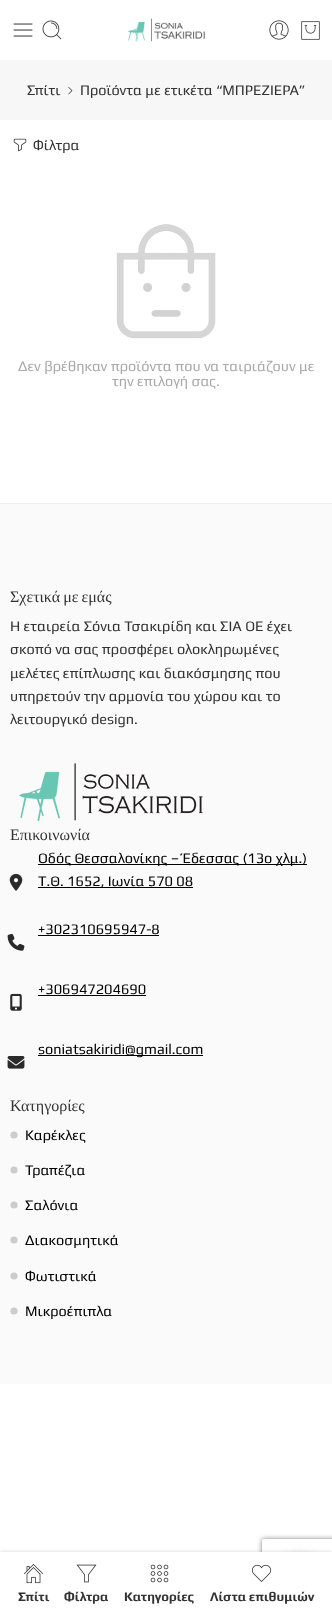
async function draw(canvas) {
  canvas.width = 332;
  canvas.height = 1613;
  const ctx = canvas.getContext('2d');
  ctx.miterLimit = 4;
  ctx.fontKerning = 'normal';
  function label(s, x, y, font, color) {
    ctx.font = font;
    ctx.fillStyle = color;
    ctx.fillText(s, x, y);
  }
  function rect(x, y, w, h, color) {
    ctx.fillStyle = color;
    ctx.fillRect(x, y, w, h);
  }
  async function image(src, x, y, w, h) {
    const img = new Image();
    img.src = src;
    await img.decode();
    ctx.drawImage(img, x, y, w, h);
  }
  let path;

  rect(0, 0, 332, 1613, '#fff');
  await image('assets/img1.png', 13, 23, 20, 14);
  await image('assets/img2.png', 42, 20, 20, 20);
  await image('assets/img3.png', 127, 18, 79, 24);
  await image('assets/img4.png', 269, 20, 20, 20);
  await image('assets/img5.png', 301, 21, 19, 19);
  rect(0, 60, 332, 60, '#f7f7f7');
  label('Σπίτι', 27, 95, '14.5px Play', '#333');
  await image('assets/img6.png', 68, 87, 5, 8);
  label('Προϊόντα με ετικέτα “ΜΠΡΕΖΙΕΡΑ”', 80, 95, '14.5px Play', '#333');
  await image('assets/img7.png', 13, 138, 14, 14);
  label('Φίλτρα', 33, 150, '14.5px Play', '#333');
  await image('assets/img8.png', 116, 224, 100, 115);
  label('Δεν βρέθηκαν προϊόντα που να ταιριάζουν με', 18, 371, '14.5px Play', '#aaa');
  label('την επιλογή σας.', 112, 386, '14.5px Play', '#aaa');
  rect(0, 504, 332, 880, '#fafafa');
  rect(0, 503, 332, 1, '#efefef');
  ctx.wordSpacing = '-1px';
  label('Σχετικά με εμάς', 10, 602, '16px Liberation Serif', '#333');
  ctx.wordSpacing = '0px';
  label('Η εταιρεία Σόνια Τσακιρίδη και ΣΙΑ ΟΕ έχει', 10, 631, '14.5px Play', '#333');
  label('σκοπό να σας προσφέρει ολοκληρωμένες', 10, 654, '14.5px Play', '#333');
  label('μελέτες επίπλωσης και διακόσμησης που', 10, 678, '14.5px Play', '#333');
  label('υπηρετούν την αρμονία του χώρου και το', 10, 701, '14.5px Play', '#333');
  label('λειτουργικό design.', 10, 724, '14.5px Play', '#333');
  await image('assets/img9.png', 19, 763, 184, 58);
  label('Επικοινωνία', 10, 840, '16px Liberation Serif', '#333');
  await image('assets/img10.png', 9, 873, 14, 18);
  rect(38, 864, 269, 1, '#000');
  label('Οδός Θεσσαλονίκης – Έδεσσας (13ο χλμ.)', 38, 863, '14.5px Play', '#000');
  rect(38, 887, 155, 1, '#000');
  label('Τ.Θ. 1652, Ιωνία 570 08', 38, 886, '14.5px Play', '#000');
  label('+302310695947-8', 38, 934, '14.5px Play', '#000');
  rect(38, 935, 121, 1, '#000');
  await image('assets/img11.png', 7, 933, 18, 18);
  label('+306947204690', 38, 994, '14.5px Play', '#000');
  rect(38, 995, 108, 1, '#000');
  await image('assets/img12.png', 10, 993, 12, 18);
  rect(38, 1055, 165, 1, '#000');
  label('soniatsakiridi@gmail.com', 38, 1054, '14.5px Play', '#000');
  await image('assets/img13.png', 7, 1056, 18, 13);
  label('Κατηγορίες', 10, 1111, '16px Liberation Serif', '#333');
  await image('assets/img14.png', 10, 1131, 8, 8);
  label('Καρέκλες', 25, 1140, '14.5px Play', '#000');
  await image('assets/img14.png', 10, 1166, 8, 8);
  label('Τραπέζια', 25, 1175, '14.5px Play', '#000');
  await image('assets/img14.png', 10, 1201, 8, 8);
  label('Σαλόνια', 25, 1210, '14.5px Play', '#000');
  await image('assets/img14.png', 10, 1236, 8, 8);
  label('Διακοσμητικά', 25, 1245, '14.5px Play', '#000');
  await image('assets/img14.png', 10, 1272, 8, 8);
  label('Φωτιστικά', 25, 1281, '14.5px Play', '#000');
  await image('assets/img14.png', 10, 1307, 8, 8);
  label('Μικροέπιπλα', 25, 1316, '14.5px Play', '#000');
  ctx.save();
  path = new Path2D('M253 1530H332V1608H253ZM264 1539H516C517 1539 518 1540 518 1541V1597C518 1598 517 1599 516 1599H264C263 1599 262 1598 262 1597V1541C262 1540 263 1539 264 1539Z');
  ctx.clip(path, 'evenodd');
  ctx.fillStyle = '#808080';
  ctx.filter = 'blur(2.5px)';
  ctx.beginPath();
  ctx.roundRect(262, 1539, 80, 60, 2);
  ctx.fill();
  ctx.filter = 'none';
  ctx.restore();
  ctx.fillStyle = '#0000001a';
  ctx.filter = 'blur(5px)';
  ctx.beginPath();
  ctx.roundRect(277, 1553, 47, 47, 23.5);
  ctx.fill();
  ctx.filter = 'none';
  ctx.filter = 'blur(1.5px)';
  ctx.beginPath();
  ctx.rect(0, 1551, 332, 61);
  ctx.fill();
  ctx.filter = 'none';
  rect(0, 1552, 332, 61, '#fff');
  await image('assets/img15.png', 24, 1564, 19, 20);
  label('Σπίτι', 18, 1601, 'bold 13px Play', '#333');
  await image('assets/img16.png', 76, 1564, 21, 19);
  label('Φίλτρα', 64, 1601, 'bold 13px Play', '#333');
  await image('assets/img17.png', 150, 1564, 19, 19);
  label('Κατηγορίες', 124, 1601, 'bold 13px Play', '#333');
  await image('assets/img18.png', 251, 1564, 21, 18);
  label('Λίστα επιθυμιών', 210, 1601, 'bold 13px Play', '#333');
}

draw(document.querySelector('canvas'));
